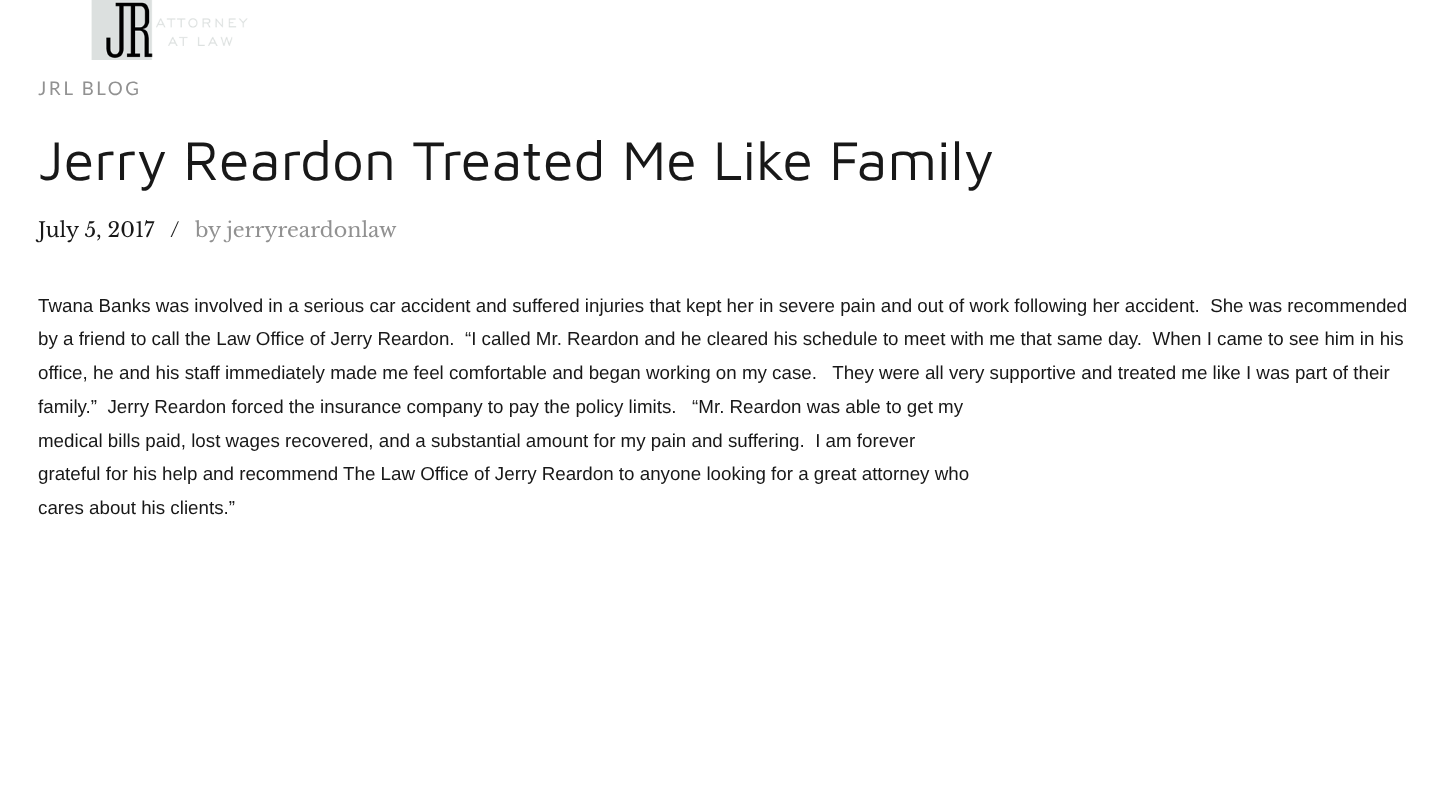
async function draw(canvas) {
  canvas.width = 1451;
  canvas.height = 798;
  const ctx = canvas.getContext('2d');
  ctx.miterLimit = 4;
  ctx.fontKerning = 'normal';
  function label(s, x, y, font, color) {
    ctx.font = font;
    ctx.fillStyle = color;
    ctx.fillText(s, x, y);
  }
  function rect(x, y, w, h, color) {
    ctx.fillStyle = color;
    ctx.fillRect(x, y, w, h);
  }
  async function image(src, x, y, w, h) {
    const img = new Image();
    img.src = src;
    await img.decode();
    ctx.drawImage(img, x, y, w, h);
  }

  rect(0, 0, 1451, 798, '#fff');
  await image('assets/img1.png', 91, 0, 157, 60);
  ctx.letterSpacing = '2.5px';
  label('JRL BLOG', 38, 95, '18.75px Lato', '#919191');
  ctx.letterSpacing = '0px';
  label('Jerry Reardon Treated Me Like Family', 38, 180, '56.25px Maven Pro', '#181818');
  label('July 5, 2017', 38, 237, '20.6px Libre Baskerville', '#181818');
  label('/', 170, 237, '20.6px Libre Baskerville', '#181818');
  label('by jerryreardonlaw', 195, 237, '20.6px Libre Baskerville', '#919191');
  label('Twana Banks was involved in a serious car accident and suffered injuries that kept her in severe pain and out of work following her accident.  She was recommended', 38, 312, '18.75px Arimo', '#181818');
  label('by a friend to call the Law Office of Jerry Reardon.  “I called Mr. Reardon and he cleared his schedule to meet with me that same day.  When I came to see him in his', 38, 345, '18.75px Arimo', '#181818');
  label('office, he and his staff immediately made me feel comfortable and began working on my case.   They were all very supportive and treated me like I was part of their', 38, 379, '18.75px Arimo', '#181818');
  label('family.”  Jerry Reardon forced the insurance company to pay the policy limits.   “Mr. Reardon was able to get my', 38, 413, '18.75px Arimo', '#181818');
  label('medical bills paid, lost wages recovered, and a substantial amount for my pain and suffering.  I am forever', 38, 447, '18.75px Arimo', '#181818');
  label('grateful for his help and recommend The Law Office of Jerry Reardon to anyone looking for a great attorney who', 38, 480, '18.75px Arimo', '#181818');
  label('cares about his clients.”', 38, 514, '18.75px Arimo', '#181818');
}

draw(document.querySelector('canvas'));
